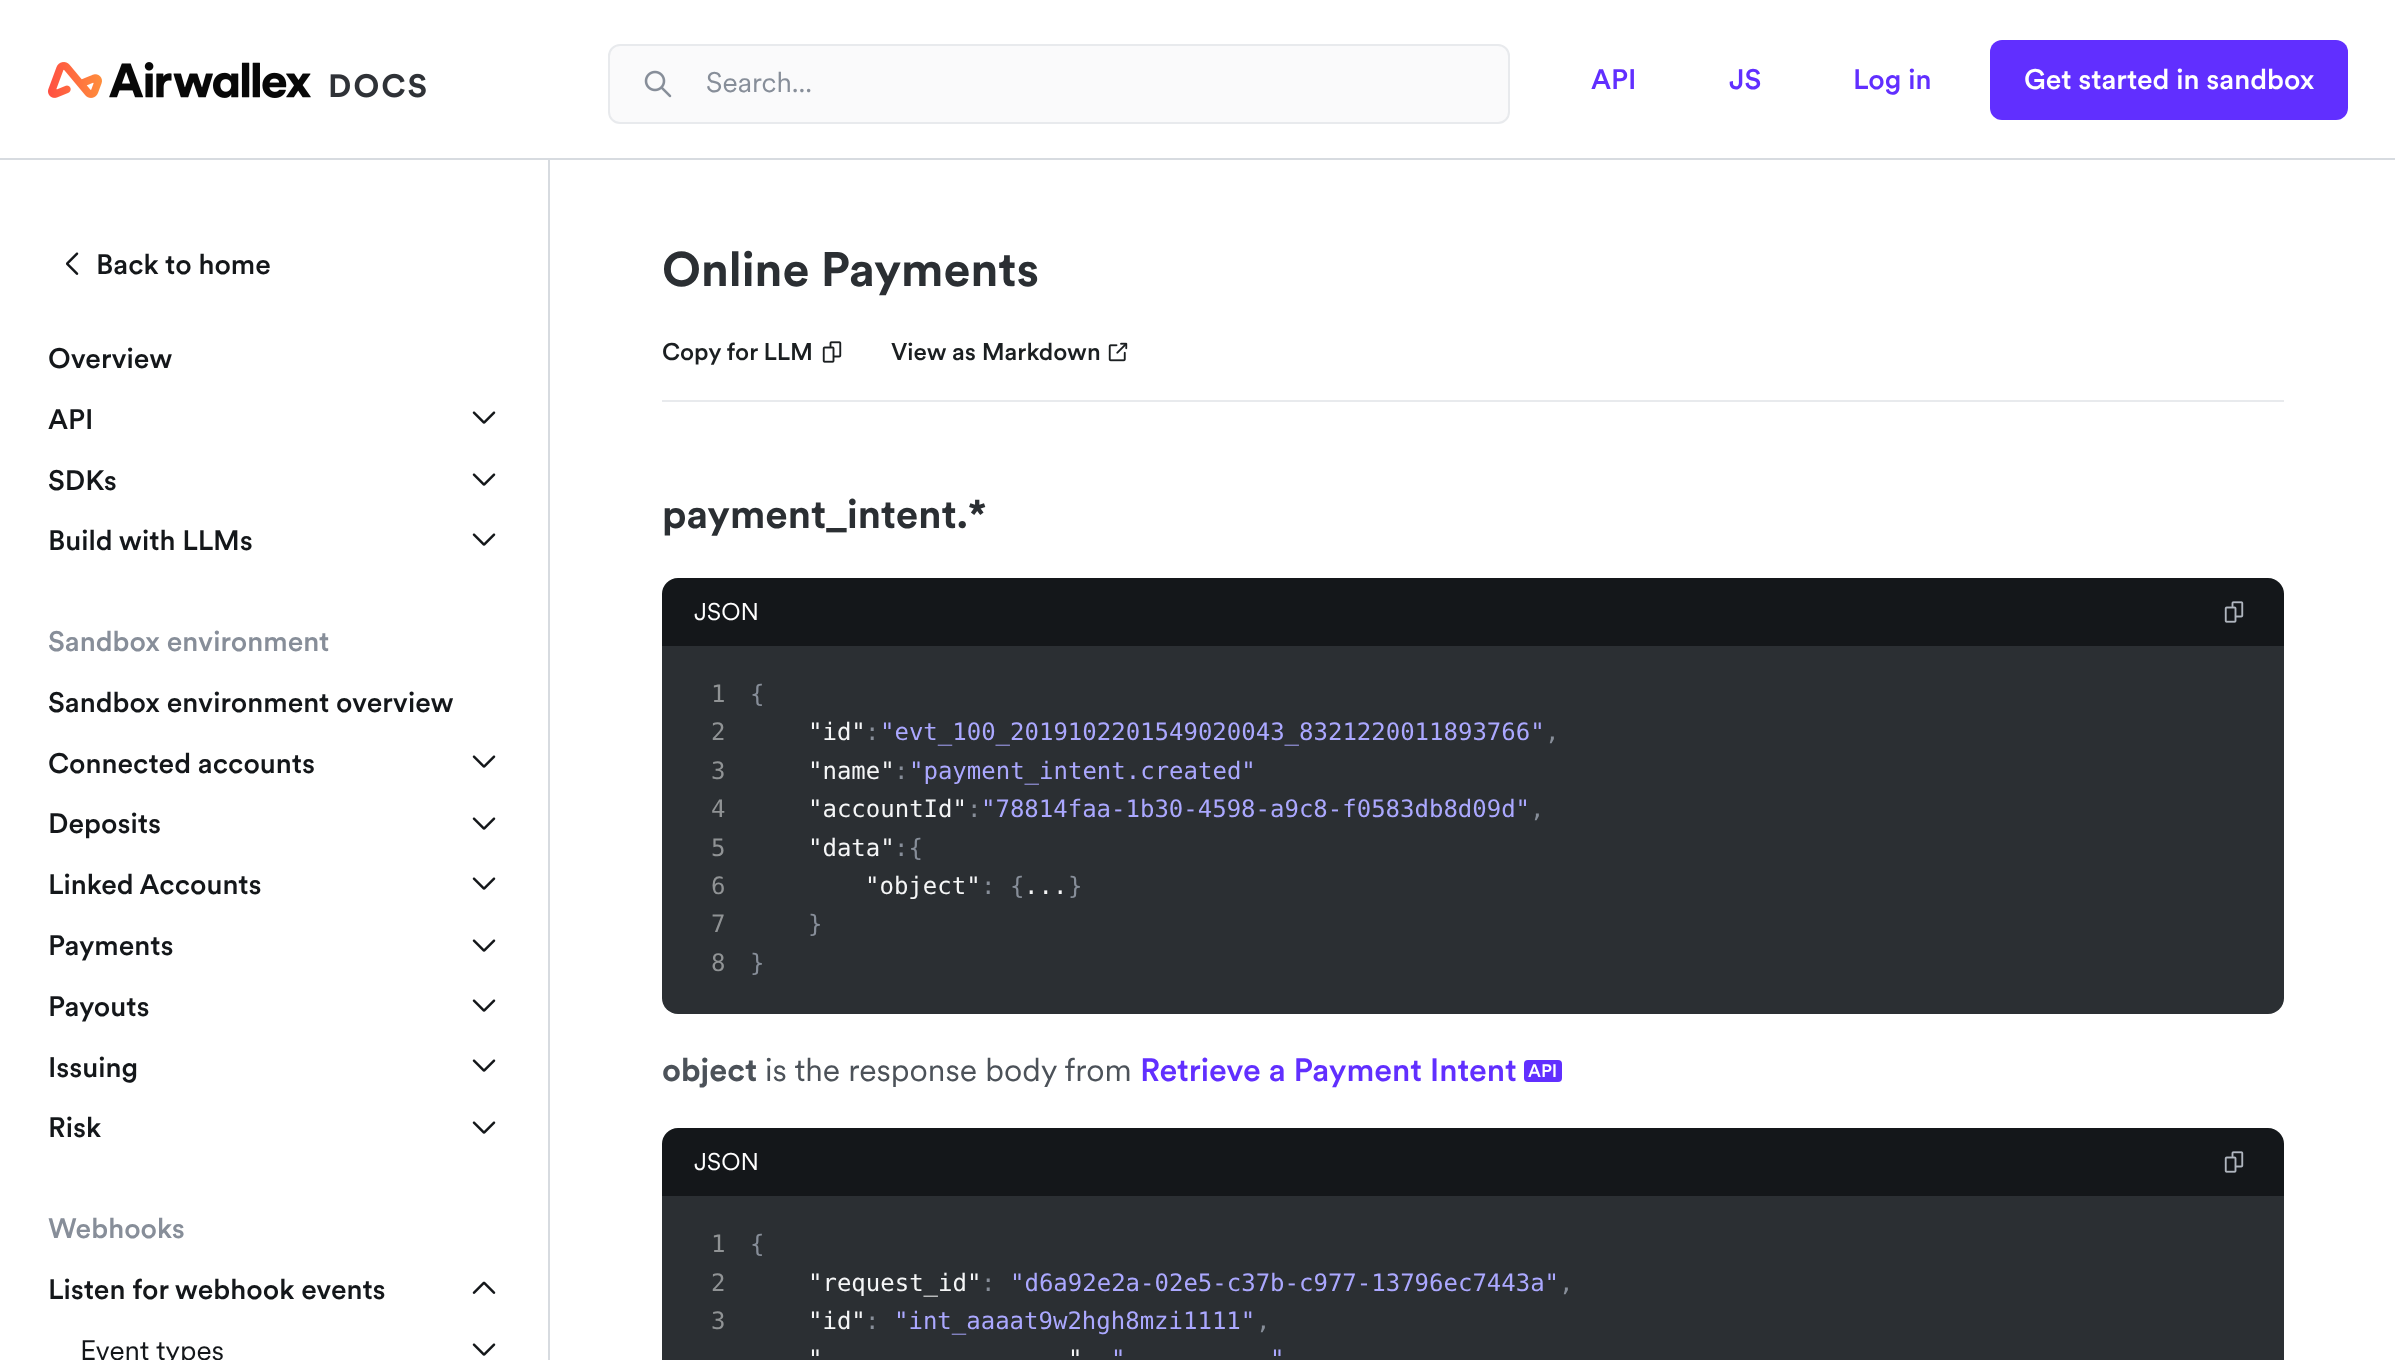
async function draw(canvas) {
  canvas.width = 2395;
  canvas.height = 1360;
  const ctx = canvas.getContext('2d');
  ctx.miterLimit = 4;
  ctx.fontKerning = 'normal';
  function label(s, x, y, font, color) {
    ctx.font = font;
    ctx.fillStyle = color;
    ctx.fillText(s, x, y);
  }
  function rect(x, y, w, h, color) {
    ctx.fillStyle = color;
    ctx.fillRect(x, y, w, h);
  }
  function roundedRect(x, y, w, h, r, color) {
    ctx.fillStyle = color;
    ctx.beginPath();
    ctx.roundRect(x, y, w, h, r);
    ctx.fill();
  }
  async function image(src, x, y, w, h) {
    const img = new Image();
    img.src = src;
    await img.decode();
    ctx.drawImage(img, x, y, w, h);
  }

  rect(0, 0, 2395, 1360, '#fff');
  rect(0, 158, 2395, 2, '#d7dbe0');
  await image('assets/img1.png', 48, 62, 378, 36);
  ctx.fillStyle = '#fafafb';
  ctx.beginPath();
  ctx.roundRect(609, 45, 900, 78, 11);
  ctx.fill();
  ctx.strokeStyle = '#e8eaed';
  ctx.lineWidth = 2;
  ctx.stroke();
  await image('assets/img2.png', 644, 70, 28, 28);
  label('Search...', 706, 92, '28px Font', '#878e99');
  label('API', 1591, 89, '500 28px Font', '#612fff');
  label('JS', 1729, 89, '500 28px Font', '#612fff');
  label('Log in', 1853, 89, '500 28px Font', '#612fff');
  roundedRect(1990, 40, 358, 80, 12, '#612fff');
  label('Get started in sandbox', 2024, 89, '500 28px Font', '#fff');
  rect(548, 160, 2, 1200, '#d7dbe0');
  await image('assets/img3.png', 66, 252, 13, 23);
  label('Back to home', 96, 274, '500 28px Font', '#14171a');
  label('Overview', 48, 368, '500 28px Font', '#14171a');
  label('API', 48, 429, '500 28px Font', '#14171a');
  await image('assets/img4.png', 472, 411, 24, 13);
  label('SDKs', 48, 490, '500 28px Font', '#14171a');
  await image('assets/img4.png', 472, 473, 24, 13);
  label('Build with LLMs', 48, 550, '500 28px Font', '#14171a');
  await image('assets/img4.png', 472, 533, 24, 13);
  label('Sandbox environment', 48, 651, '500 28px Font', '#878e99');
  label('Sandbox environment overview', 48, 712, '500 28px Font', '#14171a');
  label('Connected accounts', 48, 773, '500 28px Font', '#14171a');
  await image('assets/img4.png', 472, 755, 24, 13);
  label('Deposits', 48, 833, '500 28px Font', '#14171a');
  await image('assets/img4.png', 472, 817, 24, 13);
  label('Linked Accounts', 48, 894, '500 28px Font', '#14171a');
  await image('assets/img4.png', 472, 877, 24, 13);
  label('Payments', 48, 955, '500 28px Font', '#14171a');
  await image('assets/img4.png', 472, 939, 24, 13);
  label('Payouts', 48, 1016, '500 28px Font', '#14171a');
  await image('assets/img4.png', 472, 999, 24, 13);
  label('Issuing', 48, 1077, '500 28px Font', '#14171a');
  await image('assets/img4.png', 472, 1059, 24, 13);
  label('Risk', 48, 1137, '500 28px Font', '#14171a');
  await image('assets/img4.png', 472, 1121, 24, 13);
  label('Webhooks', 48, 1238, '500 28px Font', '#878e99');
  label('Listen for webhook events', 48, 1299, '500 28px Font', '#14171a');
  await image('assets/img5.png', 472, 1281, 24, 13);
  label('Event types', 80, 1360, '28px Font', '#14171a');
  await image('assets/img4.png', 472, 1343, 24, 13);
  rect(662, 400, 1622, 2, '#e8eaed');
  label('Online Payments', 662, 286, 'bold 48px Font', '#2b2f33');
  label('Copy for LLM', 662, 360, '500 24px Font', '#1b1f21');
  await image('assets/img6.png', 822, 341, 20, 22);
  label('View as Markdown', 891, 360, '500 24px Font', '#1b1f21');
  await image('assets/img7.png', 1108, 342, 20, 20);
  label('payment_intent.*', 662, 528, 'bold 40px Font', '#2b2f33');
  ctx.fillStyle = '#14171a';
  ctx.beginPath();
  ctx.roundRect(662, 578, 1622, 68, [16, 16, 0, 0]);
  ctx.fill();
  label('JSON', 694, 620, '24px Font', '#fff');
  await image('assets/img8.png', 2224, 601, 20, 22);
  ctx.fillStyle = '#2b2f33';
  ctx.beginPath();
  ctx.roundRect(662, 646, 1622, 368, [0, 0, 16, 16]);
  ctx.fill();
  label('1', 711, 702, '24px DejaVu Sans Mono', '#909395');
  label('{', 750, 702, '24px DejaVu Sans Mono', '#878e99');
  label('2', 711, 740, '24px DejaVu Sans Mono', '#909395');
  label('"id"', 808, 740, '24px DejaVu Sans Mono', '#f5f6f7');
  label(':', 865, 740, '24px DejaVu Sans Mono', '#878e99');
  label('"evt_100_2019102201549020043_8321220011893766"', 880, 740, '24px DejaVu Sans Mono', '#aba8ff');
  label(',', 1545, 740, '24px DejaVu Sans Mono', '#878e99');
  label('3', 711, 779, '24px DejaVu Sans Mono', '#909395');
  label('"name"', 808, 779, '24px DejaVu Sans Mono', '#f5f6f7');
  label(':', 894, 779, '24px DejaVu Sans Mono', '#878e99');
  label('"payment_intent.created"', 909, 779, '24px DejaVu Sans Mono', '#aba8ff');
  label('4', 711, 817, '24px DejaVu Sans Mono', '#909395');
  label('"accountId"', 808, 817, '24px DejaVu Sans Mono', '#f5f6f7');
  label(':', 967, 817, '24px DejaVu Sans Mono', '#878e99');
  label('"78814faa-1b30-4598-a9c8-f0583db8d09d"', 981, 817, '24px DejaVu Sans Mono', '#aba8ff');
  label(',', 1530, 817, '24px DejaVu Sans Mono', '#878e99');
  label('5', 711, 856, '24px DejaVu Sans Mono', '#909395');
  label('"data"', 808, 856, '24px DejaVu Sans Mono', '#f5f6f7');
  label(':{', 894, 856, '24px DejaVu Sans Mono', '#878e99');
  label('6', 711, 894, '24px DejaVu Sans Mono', '#909395');
  label('"object"', 865, 894, '24px DejaVu Sans Mono', '#f5f6f7');
  label(': {', 981, 894, '24px DejaVu Sans Mono', '#878e99');
  label('...', 1024, 894, '24px DejaVu Sans Mono', '#f5f6f7');
  label('}', 1068, 894, '24px DejaVu Sans Mono', '#878e99');
  label('7', 711, 932, '24px DejaVu Sans Mono', '#909395');
  label('}', 808, 932, '24px DejaVu Sans Mono', '#878e99');
  label('8', 711, 971, '24px DejaVu Sans Mono', '#909395');
  label('}', 750, 971, '24px DejaVu Sans Mono', '#878e99');
  label('object', 662, 1081, 'bold 32px Font', '#4c5259');
  label('is the response body from', 765, 1081, '32px Font', '#4c5259');
  label('Retrieve a Payment Intent', 1140, 1081, '500 32px Font', '#612fff');
  roundedRect(1524, 1060, 38, 22, 4, '#612fff');
  label('API', 1528, 1077, '500 18px Font', '#fff');
  ctx.fillStyle = '#14171a';
  ctx.beginPath();
  ctx.roundRect(662, 1128, 1622, 68, [16, 16, 0, 0]);
  ctx.fill();
  label('JSON', 694, 1170, '24px Font', '#fff');
  await image('assets/img8.png', 2224, 1151, 20, 22);
  rect(662, 1196, 1622, 164, '#2b2f33');
  label('1', 711, 1252, '24px DejaVu Sans Mono', '#909395');
  label('{', 750, 1252, '24px DejaVu Sans Mono', '#878e99');
  label('2', 711, 1291, '24px DejaVu Sans Mono', '#909395');
  label('"request_id"', 808, 1291, '24px DejaVu Sans Mono', '#f5f6f7');
  label(':', 981, 1291, '24px DejaVu Sans Mono', '#878e99');
  label('"d6a92e2a-02e5-c37b-c977-13796ec7443a"', 1010, 1291, '24px DejaVu Sans Mono', '#aba8ff');
  label(',', 1559, 1291, '24px DejaVu Sans Mono', '#878e99');
  label('3', 711, 1329, '24px DejaVu Sans Mono', '#909395');
  label('"id"', 808, 1329, '24px DejaVu Sans Mono', '#f5f6f7');
  label(':', 865, 1329, '24px DejaVu Sans Mono', '#878e99');
  label('"int_aaaat9w2hgh8mzi1111"', 894, 1329, '24px DejaVu Sans Mono', '#aba8ff');
  label(',', 1256, 1329, '24px DejaVu Sans Mono', '#878e99');
  label('"', 808, 1367, '24px DejaVu Sans Mono', '#f5f6f7');
  label('"', 1068, 1367, '24px DejaVu Sans Mono', '#f5f6f7');
  label('"', 1111, 1367, '24px DejaVu Sans Mono', '#aba8ff');
  label('"', 1270, 1367, '24px DejaVu Sans Mono', '#aba8ff');
}

draw(document.querySelector('canvas'));
